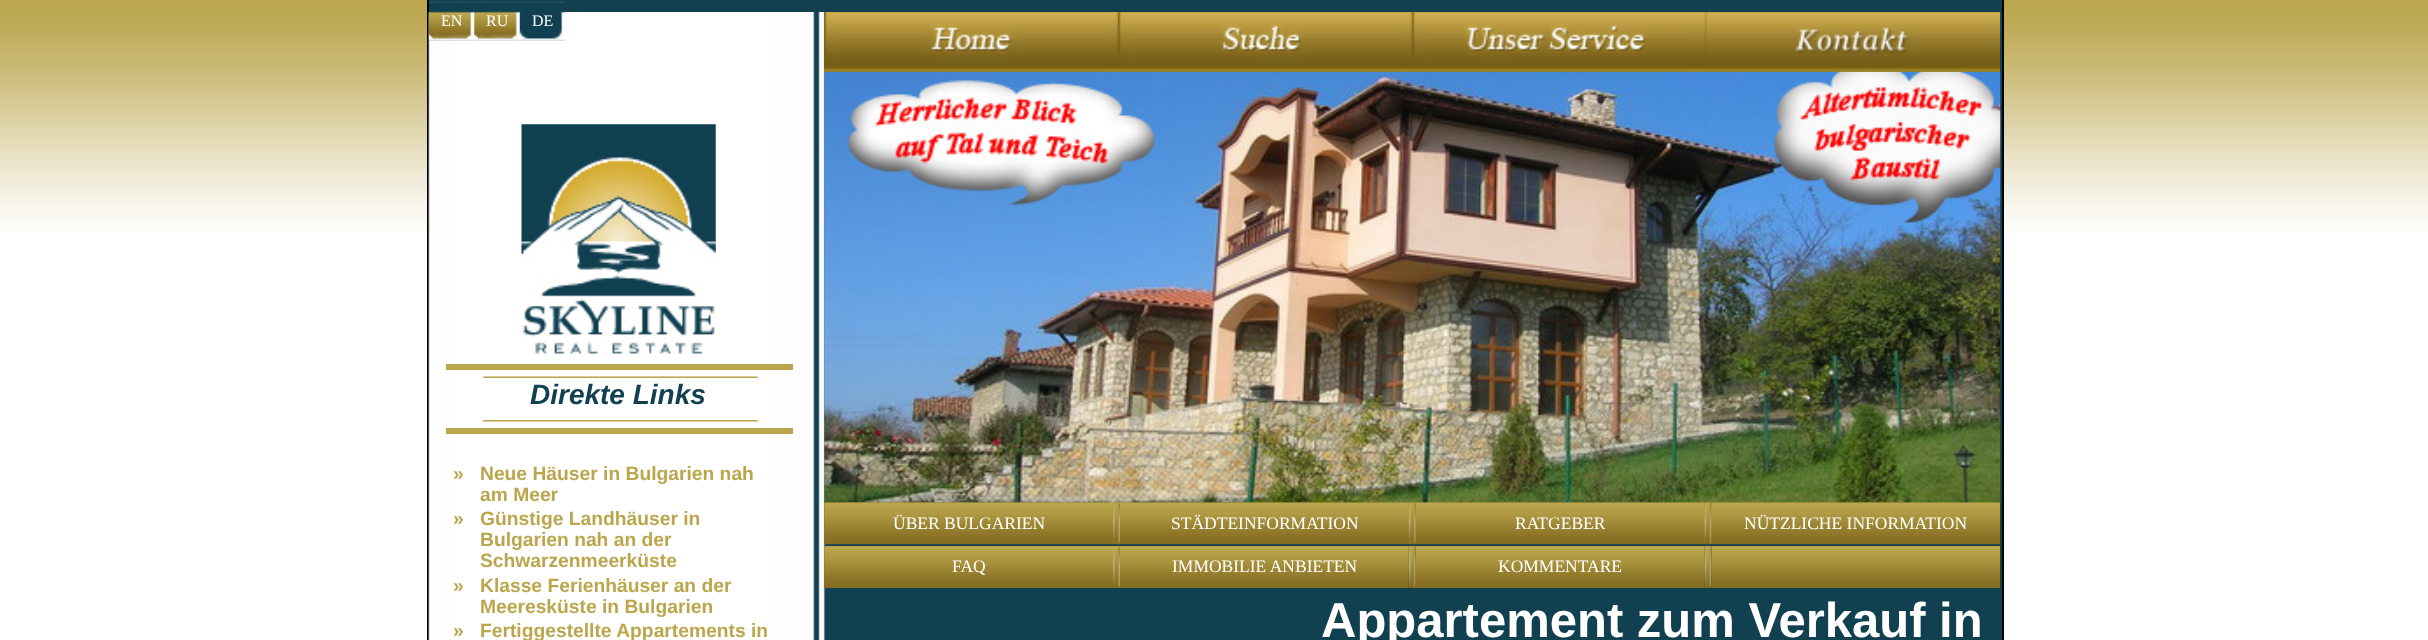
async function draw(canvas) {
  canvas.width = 2428;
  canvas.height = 640;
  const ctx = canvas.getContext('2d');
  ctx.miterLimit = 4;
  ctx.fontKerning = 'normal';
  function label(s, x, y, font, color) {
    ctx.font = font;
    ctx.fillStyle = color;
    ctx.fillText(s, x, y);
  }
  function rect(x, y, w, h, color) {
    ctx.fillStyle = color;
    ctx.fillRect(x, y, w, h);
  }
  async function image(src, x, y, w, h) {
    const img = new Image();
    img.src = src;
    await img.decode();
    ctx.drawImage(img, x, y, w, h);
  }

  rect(0, 0, 2428, 640, '#fff');
  await image('assets/img1.png', 0, 0, 2428, 232);
  await image('assets/img2.png', 427, 12, 1575, 628);
  rect(2002, 0, 2, 640, '#000');
  rect(429, 0, 1573, 12, '#124050');
  rect(427, 0, 2, 12, '#000');
  await image('assets/img3.png', 428, 1, 47, 40);
  label('EN', 441, 26, '16px Liberation Serif', '#fff');
  await image('assets/img4.png', 474, 1, 46, 40);
  label('RU', 486, 26, '16px Liberation Serif', '#fff');
  await image('assets/img5.png', 519, 1, 47, 40);
  label('DE', 532, 26, '16px Liberation Serif', '#fff');
  await image('assets/img6.png', 521, 124, 195, 230);
  rect(446, 364, 347, 6, '#bba64d');
  await image('assets/img7.png', 482, 376, 276, 2);
  label('Direkte Links', 530, 404, 'italic bold 28px Liberation Sans', '#114051');
  await image('assets/img8.png', 482, 420, 276, 2);
  rect(446, 428, 347, 6, '#bba64d');
  label('»', 453, 480, 'bold 19.25px Liberation Sans', '#bca64d');
  label('Neue Häuser in Bulgarien nah', 480, 480, 'bold 19.25px Liberation Sans', '#bca64d');
  label('am Meer', 480, 501, 'bold 19.25px Liberation Sans', '#bca64d');
  label('»', 453, 525, 'bold 19.25px Liberation Sans', '#bca64d');
  label('Günstige Landhäuser in', 480, 525, 'bold 19.25px Liberation Sans', '#bca64d');
  label('Bulgarien nah an der', 480, 546, 'bold 19.25px Liberation Sans', '#bca64d');
  label('Schwarzenmeerküste', 480, 567, 'bold 19.25px Liberation Sans', '#bca64d');
  label('»', 453, 592, 'bold 19.25px Liberation Sans', '#bca64d');
  label('Klasse Ferienhäuser an der', 480, 592, 'bold 19.25px Liberation Sans', '#bca64d');
  label('Meeresküste in Bulgarien', 480, 613, 'bold 19.25px Liberation Sans', '#bca64d');
  label('»', 453, 637, 'bold 19.25px Liberation Sans', '#bca64d');
  label('Fertiggestellte Appartements in', 480, 637, 'bold 19.25px Liberation Sans', '#bca64d');
  rect(824, 12, 1176, 60, '#94792a');
  await image('assets/img9.png', 824, 12, 294, 60);
  await image('assets/img10.png', 824, 12, 294, 60);
  await image('assets/img11.png', 1118, 12, 294, 60);
  await image('assets/img12.png', 1118, 12, 294, 60);
  await image('assets/img13.png', 1412, 12, 294, 60);
  await image('assets/img14.png', 1412, 12, 294, 60);
  await image('assets/img15.png', 1706, 12, 295, 60);
  await image('assets/img16.png', 1706, 12, 295, 60);
  rect(824, 502, 289, 42, '#94792a');
  await image('assets/img18.png', 824, 502, 289, 43);
  rect(1113, 502, 7, 1, '#94792a');
  await image('assets/img19.png', 1113, 502, 7, 43);
  rect(1120, 502, 592, 42, '#94792a');
  await image('assets/img20.png', 1120, 502, 289, 43);
  await image('assets/img21.png', 1408, 502, 8, 43);
  await image('assets/img22.png', 1415, 502, 290, 43);
  await image('assets/img23.png', 1704, 502, 8, 43);
  rect(1712, 502, 288, 1, '#94792a');
  await image('assets/img24.png', 1711, 502, 290, 43);
  await image('assets/img17.png', 824, 71, 1177, 432);
  label('ÜBER BULGARIEN', 893, 529, '17.5px Liberation Serif', '#fff');
  label('STÄDTEINFORMATION', 1171, 529, '17.5px Liberation Serif', '#fff');
  label('RATGEBER', 1515, 529, '17.5px Liberation Serif', '#fff');
  label('NÜTZLICHE INFORMATION', 1744, 529, '17.5px Liberation Serif', '#fff');
  rect(824, 546, 1, 42, '#94792a');
  await image('assets/img25.png', 824, 546, 289, 42);
  label('FAQ', 952, 572, '17.5px Liberation Serif', '#fff');
  await image('assets/img26.png', 1113, 546, 7, 42);
  await image('assets/img27.png', 1120, 546, 289, 42);
  label('IMMOBILIE ANBIETEN', 1172, 572, '17.5px Liberation Serif', '#fff');
  await image('assets/img28.png', 1408, 546, 8, 42);
  await image('assets/img29.png', 1415, 546, 290, 42);
  label('KOMMENTARE', 1498, 572, '17.5px Liberation Serif', '#fff');
  await image('assets/img30.png', 1704, 546, 8, 42);
  await image('assets/img31.png', 1711, 546, 290, 42);
  label('Appartement zum Verkauf in', 1321, 637, 'bold 49px Liberation Sans', '#fff');
}

draw(document.querySelector('canvas'));
